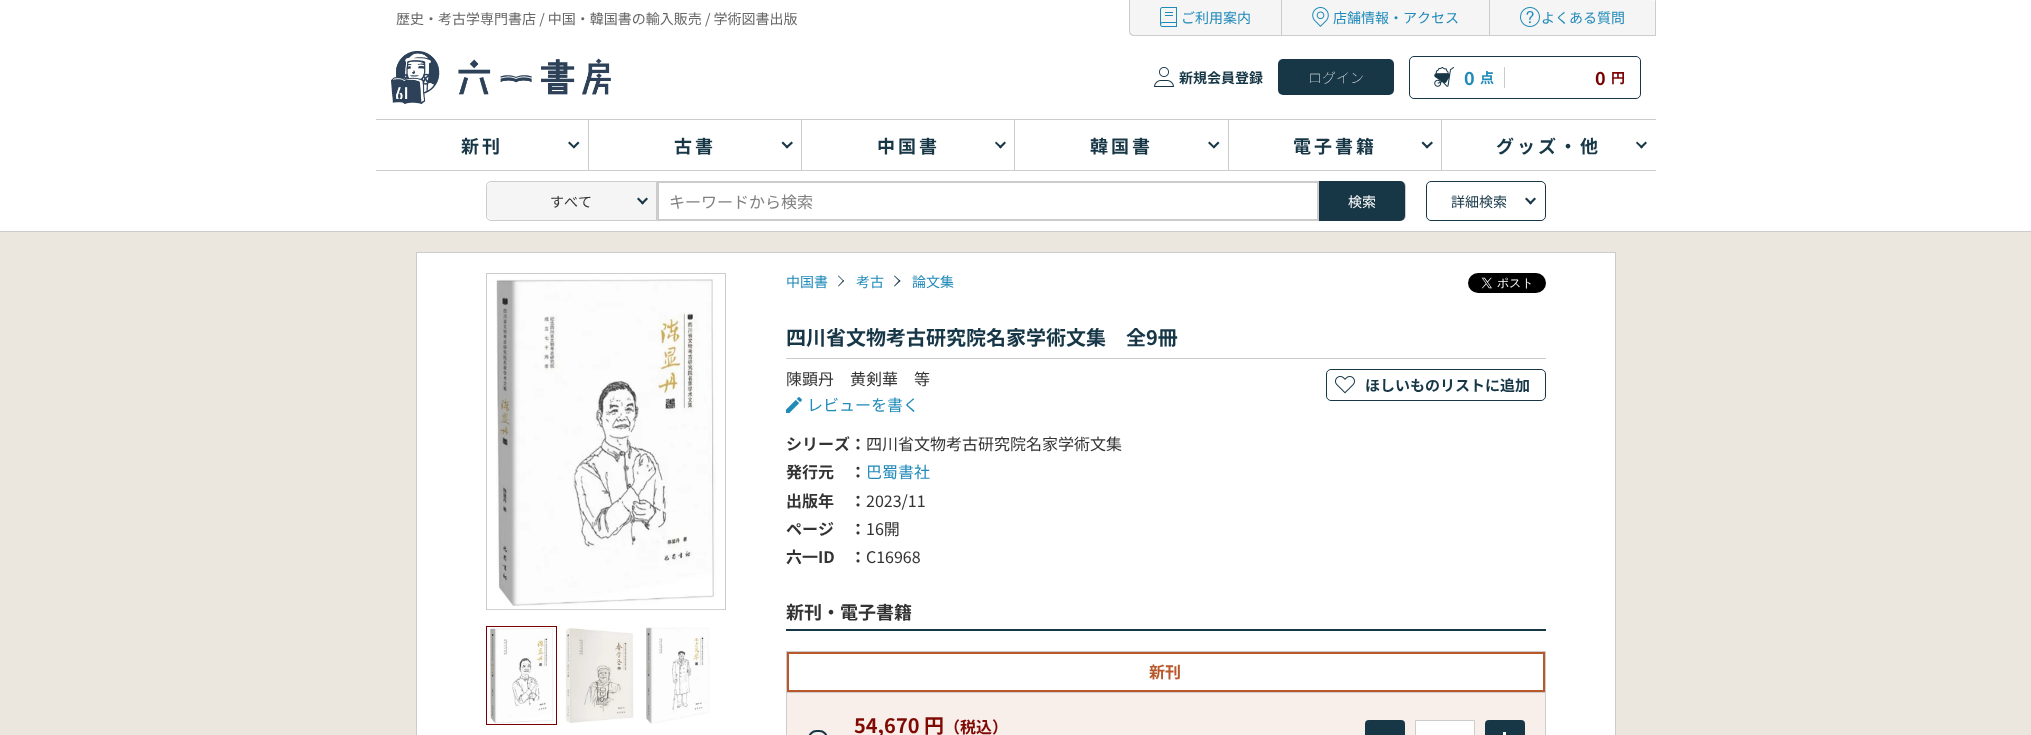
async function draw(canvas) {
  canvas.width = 2031;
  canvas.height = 735;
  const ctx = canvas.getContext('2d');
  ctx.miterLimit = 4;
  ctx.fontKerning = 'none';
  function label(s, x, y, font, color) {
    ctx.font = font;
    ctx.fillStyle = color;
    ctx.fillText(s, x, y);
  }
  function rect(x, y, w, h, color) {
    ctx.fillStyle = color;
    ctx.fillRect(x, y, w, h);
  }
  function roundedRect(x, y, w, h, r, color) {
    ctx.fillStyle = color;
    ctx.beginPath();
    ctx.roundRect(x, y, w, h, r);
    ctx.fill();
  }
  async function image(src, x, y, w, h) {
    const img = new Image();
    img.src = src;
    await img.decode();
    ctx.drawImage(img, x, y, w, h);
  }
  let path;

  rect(0, 0, 2031, 735, '#fff');
  label('歴史・考古学専門書店 / 中国・韓国書の輸入販売 / 学術図書出版', 396, 24, '14px Noto Sans CJK JP', '#666');
  ctx.fillStyle = '#f5f5f5';
  ctx.beginPath();
  ctx.roundRect(1130, 0, 526, 35, [0, 5, 0, 4]);
  ctx.fill();
  ctx.fillStyle = '#ccc';
  path = new Path2D('M1129 0H1651C1654 0 1656 2 1656 5V36H1134C1131 36 1129 34 1129 31ZM1130 0H1651C1654 0 1656 2 1656 5V35H1134C1132 35 1130 33 1130 31Z');
  ctx.fill(path, 'evenodd');
  rect(1281, 0, 1, 35, '#ccc');
  await image('assets/img1.png', 1160, 7, 17, 20);
  label('ご利用案内', 1181, 23, '14px Noto Sans CJK JP', '#208ab9');
  rect(1489, 0, 1, 35, '#ccc');
  await image('assets/img2.png', 1312, 7, 17, 20);
  label('店舗情報・アクセス', 1333, 23, '14px Noto Sans CJK JP', '#208ab9');
  rect(1655, 0, 1, 35, '#ccc');
  await image('assets/img3.png', 1520, 7, 20, 20);
  label('よくある質問', 1541, 23, '14px Noto Sans CJK JP', '#208ab9');
  await image('assets/img4.png', 391, 51, 220, 53);
  await image('assets/img5.png', 1154, 67, 20, 20);
  label('新規会員登録', 1179, 83, 'bold 14px Noto Sans CJK JP', '#173747');
  roundedRect(1278, 59, 116, 36, 5, '#173747');
  label('ログイン', 1308, 83, '100 14px Noto Sans CJK JP', '#fff');
  ctx.beginPath();
  ctx.roundRect(1409.5, 56.5, 231, 42, 4.5);
  ctx.strokeStyle = '#173747';
  ctx.stroke();
  rect(1504, 67, 1, 21, '#ccc');
  await image('assets/img6.png', 1434, 67, 20, 20);
  label('0', 1464, 85, 'bold 18px Noto Sans CJK JP', '#208ab9');
  label('点', 1480, 83, 'bold 14px Noto Sans CJK JP', '#208ab9');
  label('0', 1595, 85, 'bold 18px Noto Sans CJK JP', '#7a0000');
  label('円', 1611, 83, 'bold 14px Noto Sans CJK JP', '#7a0000');
  rect(376, 119, 1280, 1, '#ccc');
  rect(376, 170, 1280, 1, '#ccc');
  rect(588, 120, 1, 50, '#ccc');
  ctx.letterSpacing = '3px';
  label('新刊', 461, 153, 'bold 18px Noto Sans CJK JP', '#173747');
  path = new Path2D('M579.5 143L574 148.5L572.5 147L578 141.5Z');
  ctx.fill(path);
  path = new Path2D('M575 147L574 148.5L568 143L569.5 141.5Z');
  ctx.fill(path);
  rect(801, 120, 1, 50, '#ccc');
  label('古書', 674, 153, 'bold 18px Noto Sans CJK JP', '#173747');
  path = new Path2D('M793 143L787 148.5L785.5 147L791.5 141.5Z');
  ctx.fill(path);
  path = new Path2D('M788.5 147L787 148.5L781.5 143L783 141.5Z');
  ctx.fill(path);
  rect(1014, 120, 1, 50, '#ccc');
  label('中国書', 877, 153, 'bold 18px Noto Sans CJK JP', '#173747');
  path = new Path2D('M1006 143L1000.5 148.5L999 147L1004.5 141.5Z');
  ctx.fill(path);
  path = new Path2D('M1002 147L1000.5 148.5L995 143L996 141.5Z');
  ctx.fill(path);
  rect(1228, 120, 1, 50, '#ccc');
  label('韓国書', 1090, 153, 'bold 18px Noto Sans CJK JP', '#173747');
  path = new Path2D('M1219.5 143L1214 148.5L1212.5 147L1218 141.5Z');
  ctx.fill(path);
  path = new Path2D('M1215 147L1214 148.5L1208 143L1209.5 141.5Z');
  ctx.fill(path);
  rect(1441, 120, 1, 50, '#ccc');
  label('電子書籍', 1293, 153, 'bold 18px Noto Sans CJK JP', '#173747');
  path = new Path2D('M1433 143L1427 148.5L1425.5 147L1431.5 141.5Z');
  ctx.fill(path);
  path = new Path2D('M1428.5 147L1427 148.5L1421.5 143L1423 141.5Z');
  ctx.fill(path);
  label('グッズ・他', 1496, 153, 'bold 18px Noto Sans CJK JP', '#173747');
  path = new Path2D('M1647 143L1641.5 148.5L1640 147L1645.5 141.5Z');
  ctx.fill(path);
  path = new Path2D('M1643 147L1641.5 148.5L1636 143L1637 141.5Z');
  ctx.fill(path);
  ctx.beginPath();
  ctx.roundRect(486.5, 181.5, 919, 39, 4.5);
  ctx.strokeStyle = '#ccc';
  ctx.stroke();
  ctx.fillStyle = '#f5f5f5';
  ctx.beginPath();
  ctx.roundRect(487, 182, 169, 38, [5, 0, 0, 5]);
  ctx.fill();
  rect(656, 182, 1, 38, '#ccc');
  ctx.letterSpacing = '0px';
  label('すべて', 550, 207, '14px Noto Sans CJK JP', '#333');
  ctx.fillStyle = '#173747';
  path = new Path2D('M648 199L642.5 204.5L641 203L646.5 197.5Z');
  ctx.fill(path);
  path = new Path2D('M644 203L642.5 204.5L637 199L638.5 197.5Z');
  ctx.fill(path);
  ctx.lineWidth = 2;
  ctx.strokeRect(658, 182, 660, 38);
  label('キーワードから検索', 669, 208, '16px Noto Sans CJK JP', '#808080');
  ctx.fillStyle = '#173747';
  ctx.beginPath();
  ctx.roundRect(1319, 181, 86, 40, [0, 5, 5, 0]);
  ctx.fill();
  label('検索', 1348, 207, '14px Noto Sans CJK JP', '#fff');
  ctx.beginPath();
  ctx.roundRect(1426.5, 181.5, 119, 39, 4.5);
  ctx.strokeStyle = '#173747';
  ctx.lineWidth = 1;
  ctx.stroke();
  label('詳細検索', 1451, 207, '14px Noto Sans CJK JP', '#173747');
  path = new Path2D('M1536 199L1530.5 204.5L1529 203L1534.5 197.5Z');
  ctx.fill(path);
  path = new Path2D('M1532 203L1530.5 204.5L1525 199L1526.5 197.5Z');
  ctx.fill(path);
  rect(0, 232, 2031, 503, '#ece7de');
  rect(0, 231, 2031, 1, '#ccc');
  rect(417, 253, 1198, 482, '#fff');
  rect(787, 693, 758, 42, '#f8eeea');
  ctx.strokeStyle = '#ccc';
  ctx.strokeRect(416.5, 252.5, 1199, 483);
  ctx.strokeRect(486.5, 273.5, 239, 336);
  await image('assets/img7.png', 487, 279, 238, 331);
  ctx.strokeStyle = '#7a0000';
  ctx.strokeRect(486.5, 626.5, 70, 98);
  await image('assets/img8.png', 490, 628, 64, 96);
  await image('assets/img9.png', 565, 628, 69, 95);
  await image('assets/img10.png', 646, 627, 64, 97);
  label('中国書', 786, 287, '14px Noto Sans CJK JP', '#208ab9');
  ctx.fillStyle = '#173747';
  path = new Path2D('M838 276L838.5 275.5L844 281L843.5 281.5Z');
  ctx.fill(path);
  path = new Path2D('M838 286L843.5 280L844 281L838.5 286.5Z');
  ctx.fill(path);
  label('考古', 856, 287, '14px Noto Sans CJK JP', '#208ab9');
  ctx.fillStyle = '#173747';
  path = new Path2D('M894 276L894.5 275.5L900.5 281L899.5 281.5Z');
  ctx.fill(path);
  path = new Path2D('M894 286L899.5 280L900.5 281L894.5 286.5Z');
  ctx.fill(path);
  label('論文集', 912, 287, '14px Noto Sans CJK JP', '#208ab9');
  await image('assets/img11.png', 1468, 273, 78, 20);
  rect(786, 358, 760, 1, '#ccc');
  label('四川省文物考古研究院名家学術文集　全9冊', 786, 345, 'bold 20px Noto Sans CJK JP', '#173747');
  label('陳顕丹　黄剣華　等', 786, 385, '16px Noto Sans CJK JP', '#333');
  ctx.beginPath();
  ctx.roundRect(1326.5, 369.5, 219, 31, 4.5);
  ctx.strokeStyle = '#173747';
  ctx.stroke();
  await image('assets/img12.png', 1335, 376, 20, 18);
  label('ほしいものリストに追加', 1365, 391, 'bold 15px Noto Sans CJK JP', '#173747');
  await image('assets/img13.png', 786, 397, 16, 16);
  label('レビューを書く', 807, 411, '16px Noto Sans CJK JP', '#208ab9');
  label('シリーズ：', 786, 450, 'bold 16px Noto Sans CJK JP', '#333');
  label('四川省文物考古研究院名家学術文集', 866, 450, '16px Noto Sans CJK JP', '#333');
  label('発行元', 786, 478, 'bold 16px Noto Sans CJK JP', '#333');
  label('：', 850, 478, 'bold 16px Noto Sans CJK JP', '#333');
  label('巴蜀書社', 866, 478, '16px Noto Sans CJK JP', '#208ab9');
  label('出版年', 786, 507, 'bold 16px Noto Sans CJK JP', '#333');
  label('：', 850, 507, 'bold 16px Noto Sans CJK JP', '#333');
  label('2023/11', 866, 507, '16px Noto Sans CJK JP', '#333');
  label('ページ', 786, 535, 'bold 16px Noto Sans CJK JP', '#333');
  label('：', 850, 535, 'bold 16px Noto Sans CJK JP', '#333');
  label('16開', 866, 535, '16px Noto Sans CJK JP', '#333');
  label('六一ID', 786, 563, 'bold 16px Noto Sans CJK JP', '#333');
  label('：', 850, 563, 'bold 16px Noto Sans CJK JP', '#333');
  label('C16968', 866, 563, '16px Noto Sans CJK JP', '#333');
  rect(786, 629, 760, 2, '#173747');
  label('新刊・電子書籍', 786, 619, 'bold 18px Noto Sans CJK JP', '#333');
  ctx.strokeStyle = '#ccc';
  ctx.strokeRect(786.5, 651.5, 759, 41);
  ctx.strokeStyle = '#b8582b';
  ctx.lineWidth = 2;
  ctx.strokeRect(788, 653, 756, 38);
  label('新刊', 1149, 678, 'bold 16px Noto Sans CJK JP', '#b8582b');
  ctx.strokeStyle = '#ccc';
  ctx.lineWidth = 1;
  ctx.strokeRect(786.5, 692.5, 759, 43);
  ctx.beginPath();
  ctx.roundRect(809, 731, 18, 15, 9);
  ctx.strokeStyle = '#173747';
  ctx.lineWidth = 2;
  ctx.stroke();
  label('54,670 円', 854, 733, 'bold 20px Noto Sans CJK JP', '#800904');
  label('（税込）', 944, 733, 'bold 16px Noto Sans CJK JP', '#800904');
  roundedRect(1365, 720, 40, 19, 4, '#173747');
  ctx.fillStyle = '#fff';
  ctx.beginPath();
  ctx.rect(1415.5, 720.5, 59, 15);
  ctx.fill();
  ctx.strokeStyle = '#ccc';
  ctx.lineWidth = 1;
  ctx.stroke();
  roundedRect(1485, 720, 40, 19, 4, '#173747');
  rect(1503, 732, 3, 3, '#fff');
}

draw(document.querySelector('canvas'));
